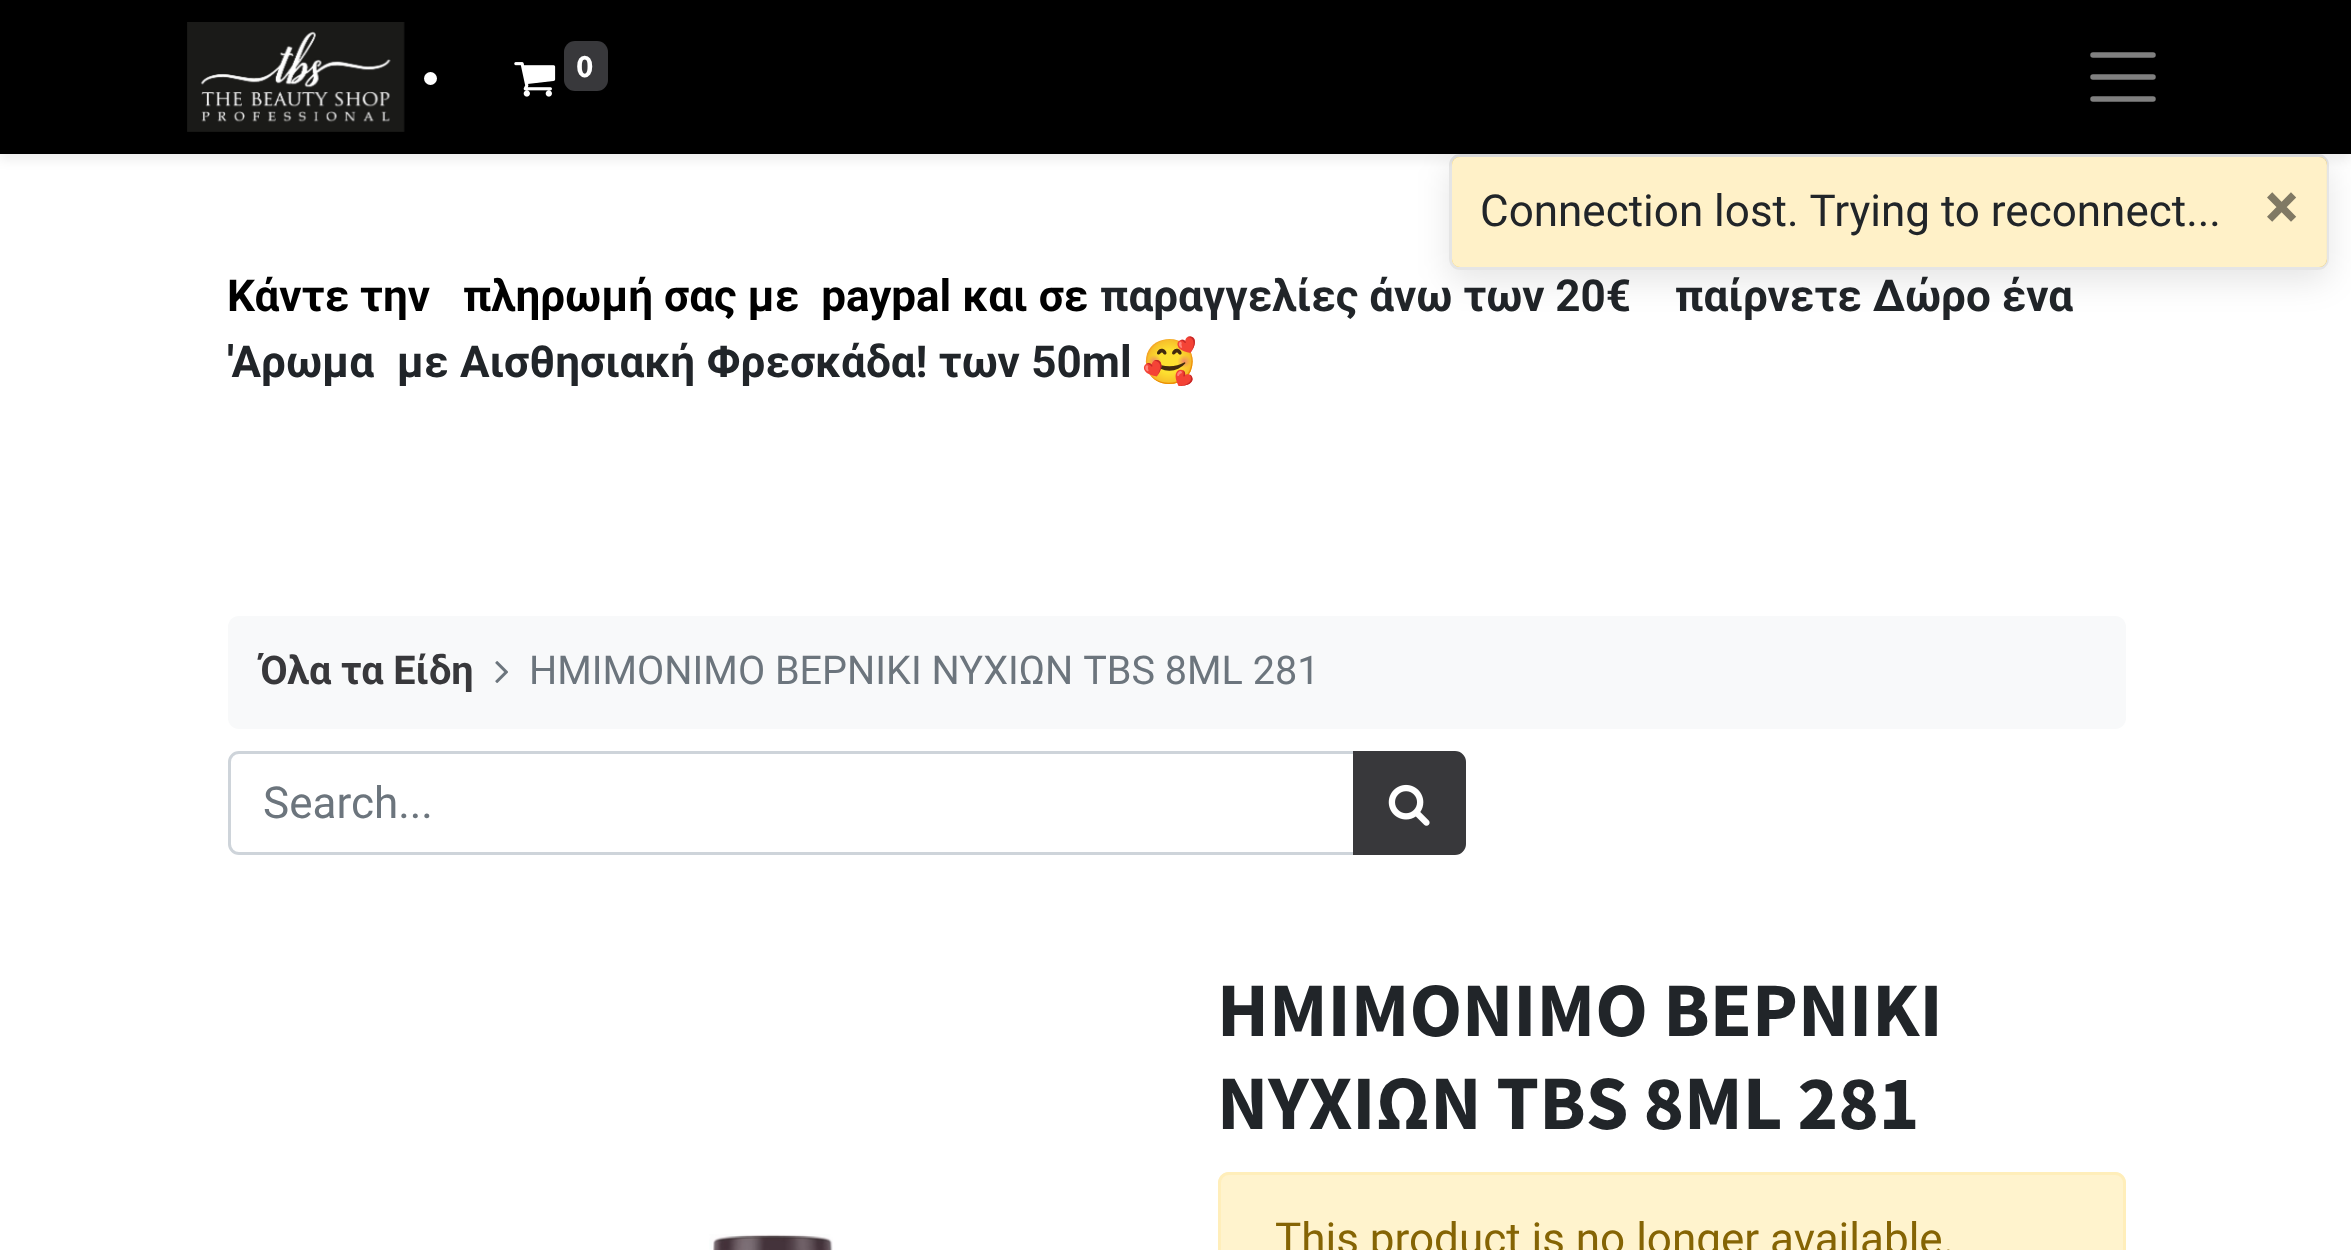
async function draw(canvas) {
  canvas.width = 2351;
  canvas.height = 1250;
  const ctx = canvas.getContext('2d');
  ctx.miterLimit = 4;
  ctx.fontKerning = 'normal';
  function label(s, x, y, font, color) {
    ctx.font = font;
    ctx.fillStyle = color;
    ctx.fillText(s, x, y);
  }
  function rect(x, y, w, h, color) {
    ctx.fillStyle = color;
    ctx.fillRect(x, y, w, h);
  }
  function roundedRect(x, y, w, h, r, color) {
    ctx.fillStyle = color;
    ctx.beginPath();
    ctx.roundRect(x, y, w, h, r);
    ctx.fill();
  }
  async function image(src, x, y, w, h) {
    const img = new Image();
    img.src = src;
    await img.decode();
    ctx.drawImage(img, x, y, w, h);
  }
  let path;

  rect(0, 0, 2351, 1250, '#fff');
  ctx.fillStyle = '#00000012';
  ctx.filter = 'blur(5.5px)';
  ctx.beginPath();
  ctx.rect(0, 6, 2351, 154);
  ctx.fill();
  ctx.filter = 'none';
  rect(0, 0, 2351, 154, '#000');
  await image('assets/img1.png', 187, 22, 218, 110);
  ctx.fillStyle = '#fff';
  ctx.beginPath();
  ctx.arc(430.5, 78.5, 6.5, 0, 2 * Math.PI);
  ctx.fill();
  await image('assets/img2.png', 514, 62, 42, 35);
  roundedRect(564, 41, 44, 50, 11, '#38383b');
  label('0', 576, 77, 'bold 33px Source Sans Pro', '#fff');
  path = new Path2D('M2093 55H2153M2093 77H2153M2093 99H2153');
  ctx.strokeStyle = '#808080';
  ctx.lineWidth = 5.5;
  ctx.lineCap = 'round';
  ctx.stroke(path);
  label('Κάντε την   πληρωμή σας με  paypal και σε', 227, 311, 'bold 44px Roboto', '#000');
  label('παραγγελίες άνω των 20€', 1100, 311, 'bold 44px Roboto', '#212529');
  label('παίρνετε Δώρο ένα', 1675, 311, 'bold 44px Roboto', '#212529');
  ctx.wordSpacing = '0.5px';
  label('\'Aρωμα  με Αισθησιακή Φρεσκάδα! των 50ml', 227, 377, 'bold 44px Roboto', '#212529');
  ctx.wordSpacing = '0px';
  label('🥰', 1142, 377, 'bold 44px Noto Color Emoji', '#000');
  roundedRect(228, 616, 1898, 113, 11, '#f8f9fa');
  label('Όλα τα Είδη', 260, 684, 'bold 39.6px Roboto', '#38383b');
  await image('assets/img3.png', 495, 661, 13, 22);
  label('ΗΜΙΜΟΝΙΜΟ ΒΕΡΝΙΚΙ ΝΥΧΙΩΝ TBS 8ML 281', 529, 684, '39.6px Roboto', '#6c757d');
  ctx.beginPath();
  ctx.roundRect(229.5, 752.5, 1125, 101, [9.5, 0, 0, 9.5]);
  ctx.strokeStyle = '#ced4da';
  ctx.lineWidth = 3;
  ctx.stroke();
  label('Search...', 263, 818, '44px Roboto', '#6c757d');
  ctx.fillStyle = '#38383b';
  ctx.beginPath();
  ctx.roundRect(1354.5, 752.5, 110, 101, [0, 9.5, 9.5, 0]);
  ctx.fill();
  ctx.strokeStyle = '#38383b';
  ctx.stroke();
  await image('assets/img4.png', 1388, 784, 42, 42);
  await image('assets/img5.png', 709, 1234, 124, 16);
  label('ΗΜΙΜΟΝΙΜΟ ΒΕΡΝΙΚΙ', 1217, 1036, 'bold 77px Source Sans Pro', '#212529');
  ctx.wordSpacing = '-0.5px';
  label('ΝΥΧΙΩΝ TBS 8ML 281', 1217, 1129, 'bold 77px Source Sans Pro', '#212529');
  ctx.fillStyle = '#fff3cd';
  path = new Path2D('M1229 1172H2115C2121 1172 2126 1177 2126 1183V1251H1218V1183C1218 1177 1223 1172 1229 1172Z');
  ctx.fill(path);
  ctx.beginPath();
  ctx.roundRect(1219.5, 1173.5, 905, 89, 9.5);
  ctx.strokeStyle = '#ffeeba';
  ctx.stroke();
  ctx.wordSpacing = '0px';
  label('This product is no longer available.', 1275, 1254, '44px Roboto', '#856404');
  ctx.save();
  path = new Path2D('M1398 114H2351V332H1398ZM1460 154H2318C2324 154 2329 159 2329 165V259C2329 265 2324 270 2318 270H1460C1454 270 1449 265 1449 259V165C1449 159 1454 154 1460 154Z');
  ctx.clip(path, 'evenodd');
  ctx.fillStyle = '#0000001a';
  ctx.filter = 'blur(16.5px)';
  ctx.beginPath();
  ctx.roundRect(1449, 165, 880, 116, 11);
  ctx.fill();
  ctx.filter = 'none';
  ctx.restore();
  roundedRect(1452, 157, 875, 110, 8, '#ffc107');
  ctx.beginPath();
  ctx.roundRect(1450.5, 155.5, 877, 113, 9.5);
  ctx.strokeStyle = '#0000001a';
  ctx.stroke();
  roundedRect(1452, 157, 875, 110, 8, '#ffffffc7');
  label('Connection lost. Trying to reconnect...', 1480, 226, '44px Roboto', '#212529');
  label('×', 2265, 228, 'bold 63px Roboto', '#807964');
}

draw(document.querySelector('canvas'));
